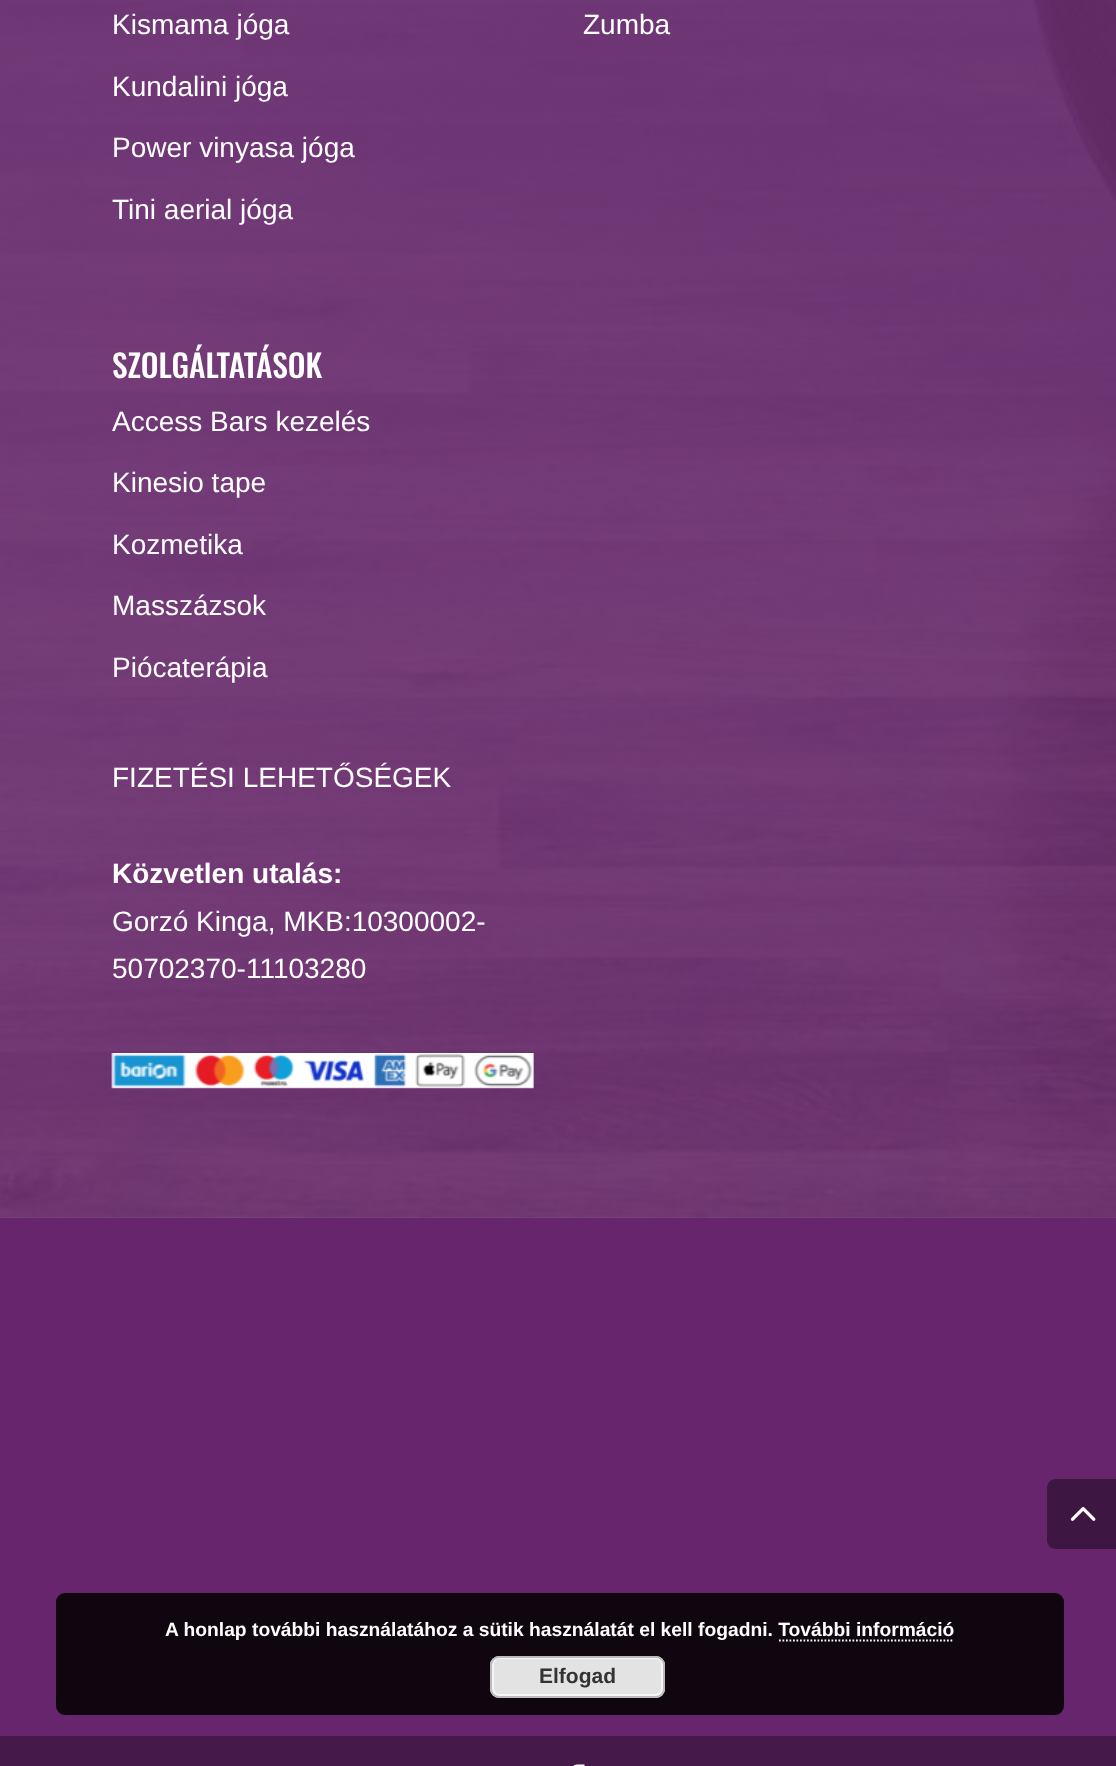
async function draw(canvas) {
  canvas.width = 1116;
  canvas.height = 1766;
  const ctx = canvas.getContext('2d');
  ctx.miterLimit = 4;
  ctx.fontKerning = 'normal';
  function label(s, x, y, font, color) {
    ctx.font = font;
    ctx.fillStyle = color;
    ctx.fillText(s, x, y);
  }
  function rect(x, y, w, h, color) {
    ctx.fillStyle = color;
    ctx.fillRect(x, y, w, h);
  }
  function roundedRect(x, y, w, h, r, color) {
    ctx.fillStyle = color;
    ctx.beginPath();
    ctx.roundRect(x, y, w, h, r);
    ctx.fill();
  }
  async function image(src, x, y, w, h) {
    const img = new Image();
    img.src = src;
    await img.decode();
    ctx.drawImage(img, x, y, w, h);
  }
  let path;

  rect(0, 0, 1116, 1766, '#66256d');
  await image('assets/img1.png', 0, 0, 1116, 1218);
  label('Kismama jóga', 112, 34, '28px Liberation Sans', '#fff');
  label('Kundalini jóga', 112, 96, '28px Liberation Sans', '#fff');
  label('Power vinyasa jóga', 112, 157, '28px Liberation Sans', '#fff');
  label('Tini aerial jóga', 112, 219, '28px Liberation Sans', '#fff');
  label('Zumba', 583, 34, '28px Liberation Sans', '#fff');
  label('SZOLGÁLTATÁSOK', 112, 378, '500 31.5px Oswald', '#fff');
  label('Access Bars kezelés', 112, 431, '28px Liberation Sans', '#fff');
  label('Kinesio tape', 112, 492, '28px Liberation Sans', '#fff');
  label('Kozmetika', 112, 554, '28px Liberation Sans', '#fff');
  label('Masszázsok', 112, 615, '28px Liberation Sans', '#fff');
  label('Piócaterápia', 112, 677, '28px Liberation Sans', '#fff');
  label('FIZETÉSI LEHETŐSÉGEK', 112, 787, '28px Liberation Sans', '#fff');
  label('Közvetlen utalás:', 112, 883, 'bold 28px Liberation Sans', '#fff');
  label('Gorzó Kinga, MKB:10300002-', 112, 931, '28px Liberation Sans', '#fff');
  label('50702370-11103280', 112, 978, '28px Liberation Sans', '#fff');
  await image('assets/img2.png', 111, 1053, 423, 36);
  ctx.fillStyle = '#3d1641';
  path = new Path2D('M1056 1479H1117V1549H1056C1051 1549 1047 1545 1047 1540V1488C1047 1483 1051 1479 1056 1479Z');
  ctx.fill(path);
  await image('assets/img3.png', 1070, 1507, 26, 14);
  rect(0, 1736, 1116, 30, '#45194a');
  await image('assets/img4.png', 573, 1764, 12, 2);
  roundedRect(56, 1593, 1008, 122, 9, '#0f0610');
  label('A honlap további használatához a sütik használatát el kell fogadni. További információ', 165, 1636, 'bold 19.25px Liberation Sans', '#fff');
  path = new Path2D('M779 1640.5H954');
  ctx.strokeStyle = '#fff';
  ctx.lineWidth = 1.8;
  ctx.setLineDash([1.75, 1.75]);
  ctx.stroke(path);
  roundedRect(490, 1656, 175, 42, 9, '#e3e3e3');
  ctx.beginPath();
  ctx.roundRect(493, 1658, 169, 37, 6);
  ctx.strokeStyle = '#f6f6f6';
  ctx.lineWidth = 2;
  ctx.setLineDash([]);
  ctx.stroke();
  ctx.beginPath();
  ctx.roundRect(491, 1657, 173, 40, 8);
  ctx.strokeStyle = '#bbb';
  ctx.stroke();
  label('Elfogad', 539, 1683, 'bold 21px Liberation Sans', '#333');
}

draw(document.querySelector('canvas'));
